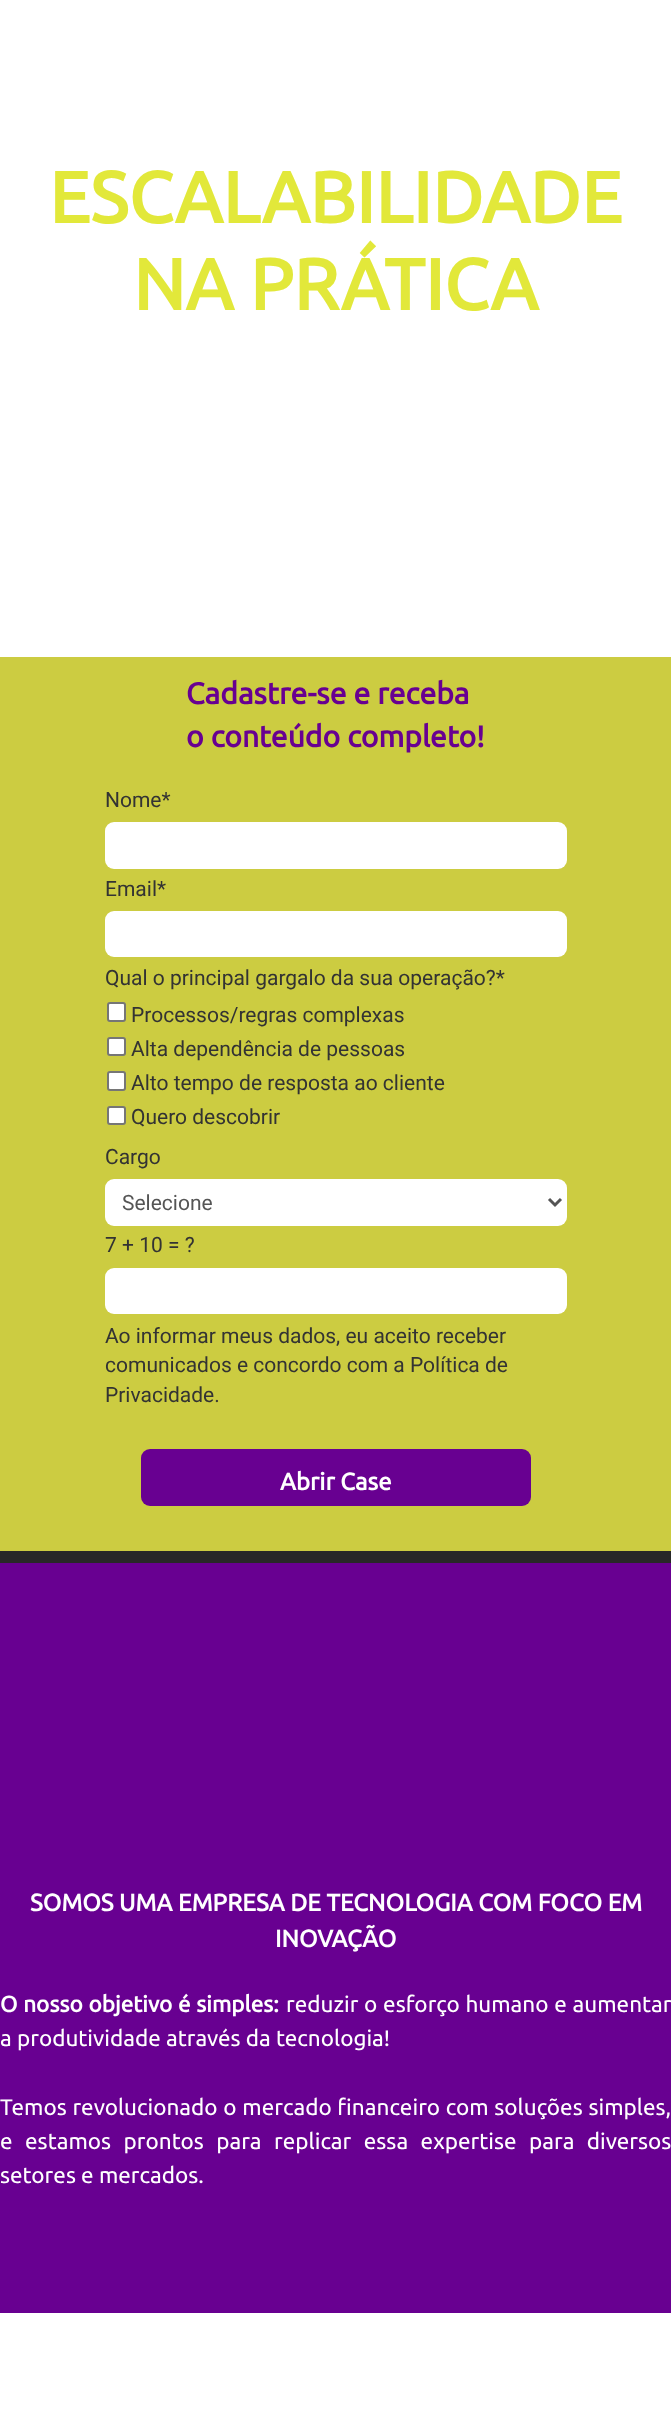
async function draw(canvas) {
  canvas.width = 671;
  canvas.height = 2425;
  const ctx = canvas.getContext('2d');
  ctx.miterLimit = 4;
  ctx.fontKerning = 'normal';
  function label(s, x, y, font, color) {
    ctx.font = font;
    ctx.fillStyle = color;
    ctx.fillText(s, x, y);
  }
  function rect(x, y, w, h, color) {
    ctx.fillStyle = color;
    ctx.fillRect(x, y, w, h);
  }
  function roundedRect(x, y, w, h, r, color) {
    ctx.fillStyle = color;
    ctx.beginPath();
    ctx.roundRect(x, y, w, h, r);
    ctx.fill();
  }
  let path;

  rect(0, 0, 671, 2425, '#fff');
  label('ESCALABILIDADE', 49, 223, 'bold 72px Ubuntu', '#e2e83a');
  label('NA PRÁTICA', 133, 310, 'bold 72px Ubuntu', '#e2e83a');
  rect(0, 657, 671, 894, '#cccc41');
  label('Cadastre-se e receba', 186, 704, 'bold 30px Ubuntu', '#680091');
  label('o conteúdo completo!', 186, 747, 'bold 30px Ubuntu', '#680091');
  label('Nome*', 105, 807, '21px Roboto', '#333');
  roundedRect(105, 822, 462, 47, 9, '#fff');
  label('Email*', 105, 896, '21px Roboto', '#333');
  roundedRect(105, 911, 462, 46, 9, '#fff');
  label('Qual o principal gargalo da sua operação?*', 105, 985, '21px Roboto', '#333');
  ctx.fillStyle = '#fff';
  ctx.beginPath();
  ctx.roundRect(108, 1003, 17, 18, 2);
  ctx.fill();
  ctx.strokeStyle = '#767676';
  ctx.lineWidth = 2;
  ctx.stroke();
  label('Processos/regras complexas', 131, 1022, '21px Roboto', '#333');
  ctx.fillStyle = '#fff';
  ctx.beginPath();
  ctx.roundRect(108, 1038, 17, 17, 2);
  ctx.fill();
  ctx.stroke();
  label('Alta dependência de pessoas', 131, 1056, '21px Roboto', '#333');
  ctx.fillStyle = '#fff';
  ctx.beginPath();
  ctx.roundRect(108, 1072, 17, 18, 2);
  ctx.fill();
  ctx.stroke();
  label('Alto tempo de resposta ao cliente', 131, 1090, '21px Roboto', '#333');
  ctx.fillStyle = '#fff';
  ctx.beginPath();
  ctx.roundRect(108, 1107, 17, 17, 2);
  ctx.fill();
  ctx.stroke();
  label('Quero descobrir', 131, 1124, '21px Roboto', '#333');
  label('Cargo', 105, 1164, '21px Roboto', '#333');
  roundedRect(105, 1179, 462, 47, 9, '#fff');
  path = new Path2D('M549 1199L555 1205L561 1199');
  ctx.strokeStyle = '#555';
  ctx.lineWidth = 3;
  ctx.stroke(path);
  label('Selecione', 122, 1210, '21px Roboto', '#555');
  label('7 + 10 = ?', 105, 1252, '21px Roboto', '#333');
  roundedRect(105, 1268, 462, 46, 9, '#fff');
  label('Ao informar meus dados, eu aceito receber', 105, 1343, '21px Roboto', '#333');
  label('comunicados e concordo com a Política de', 105, 1372, '21px Roboto', '#333');
  label('Privacidade.', 105, 1402, '21px Roboto', '#333');
  roundedRect(141, 1449, 390, 57, 9, '#680091');
  label('Abrir Case', 280, 1490, 'bold 24px Ubuntu', '#fff');
  rect(0, 1563, 671, 750, '#680091');
  rect(0, 1551, 671, 12, '#282828');
  label('SOMOS UMA EMPRESA DE TECNOLOGIA COM FOCO EM', 30, 1911, 'bold 24px Ubuntu', '#fff');
  label('INOVAÇÃO', 275, 1947, 'bold 24px Ubuntu', '#fff');
  ctx.wordSpacing = '0.5px';
  label('O nosso objetivo é simples:', 0, 2012, 'bold 22.5px Ubuntu', '#fff');
  label('reduzir o esforço humano e aumentar', 286, 2012, '22.5px Ubuntu', '#fff');
  ctx.wordSpacing = '0px';
  label('a produtividade através da tecnologia!', 0, 2046, '22.5px Ubuntu', '#fff');
  ctx.wordSpacing = '0.5px';
  label('Temos revolucionado o mercado financeiro com soluções simples,', 0, 2115, '22.5px Ubuntu', '#fff');
  ctx.wordSpacing = '7.25px';
  label('e estamos prontos para replicar essa expertise para diversos', 0, 2149, '22.5px Ubuntu', '#fff');
  ctx.wordSpacing = '0px';
  label('setores e mercados.', 0, 2183, '22.5px Ubuntu', '#fff');
}

draw(document.querySelector('canvas'));
